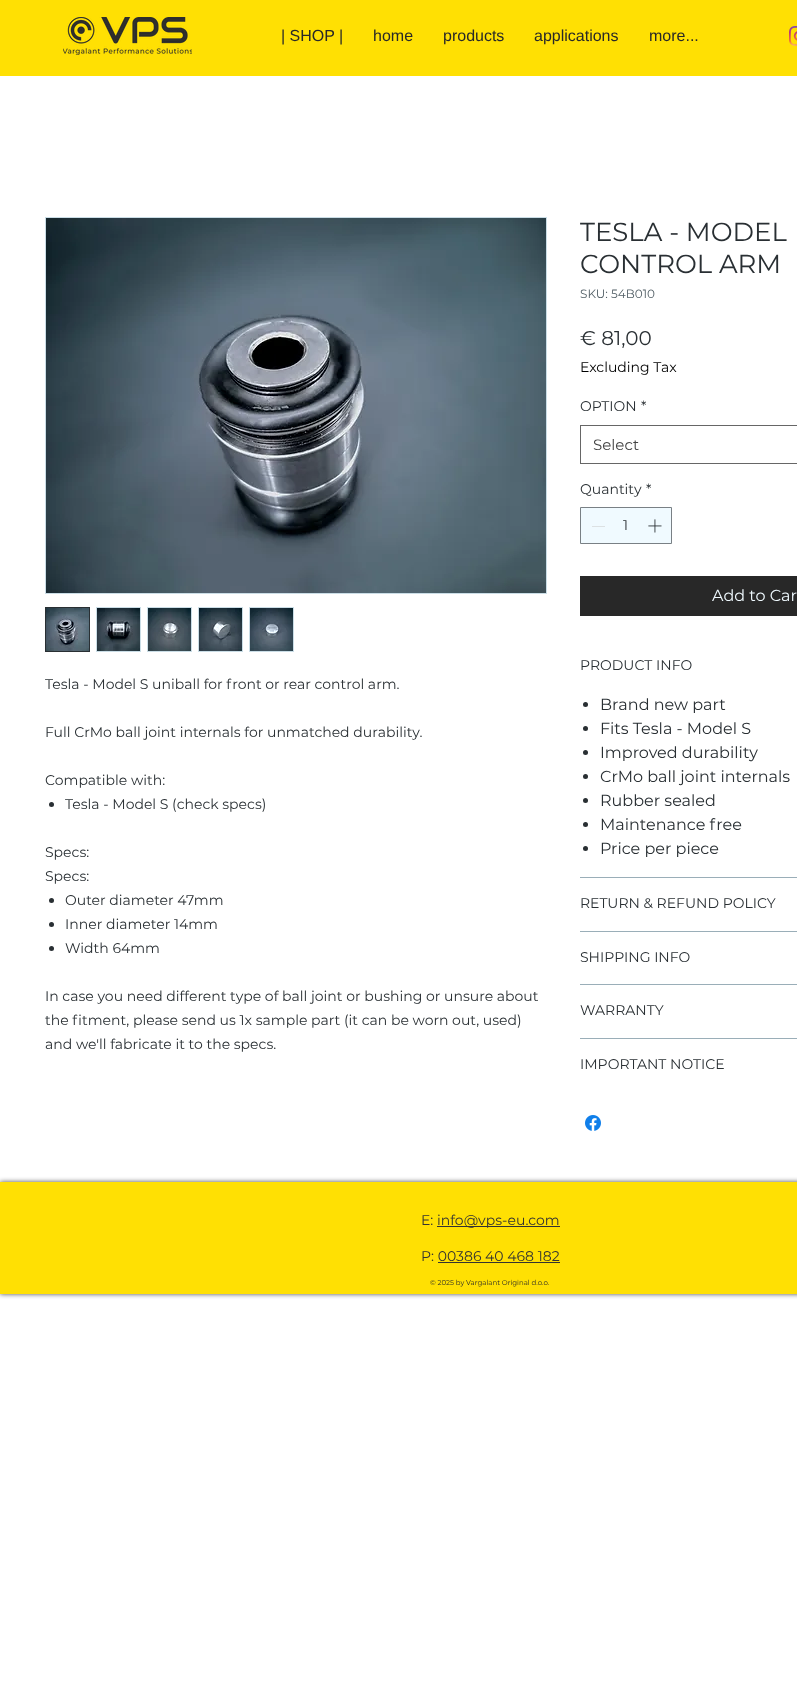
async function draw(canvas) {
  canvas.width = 797;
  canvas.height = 1697;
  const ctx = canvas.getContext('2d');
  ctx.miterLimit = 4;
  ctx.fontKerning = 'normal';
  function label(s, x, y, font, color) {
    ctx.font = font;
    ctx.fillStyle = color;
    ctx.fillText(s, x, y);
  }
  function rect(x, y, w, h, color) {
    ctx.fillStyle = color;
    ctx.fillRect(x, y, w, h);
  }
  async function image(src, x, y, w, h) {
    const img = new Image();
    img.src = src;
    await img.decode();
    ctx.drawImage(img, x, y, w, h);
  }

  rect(0, 0, 797, 1697, '#fff');
  rect(0, 0, 797, 76, '#ffe003');
  await image('assets/img1.png', 63, 17, 129, 38);
  label('| SHOP |', 281, 41, '16px Liberation Sans', '#282828');
  label('home', 373, 41, '16px Liberation Sans', '#282828');
  label('products', 443, 41, '16px Liberation Sans', '#282828');
  label('applications', 534, 41, '16px Liberation Sans', '#282828');
  label('more...', 649, 41, '16px Liberation Sans', '#282828');
  await image('assets/img2.png', 789, 26, 8, 20);
  ctx.strokeStyle = '#cadde6';
  ctx.strokeRect(45.5, 217.5, 501, 376);
  await image('assets/img3.png', 46, 218, 500, 375);
  ctx.strokeStyle = '#292f33';
  ctx.strokeRect(45.5, 607.5, 44, 44);
  await image('assets/img4.png', 46, 608, 43, 43);
  rect(96, 607, 45, 45, '#cadde6');
  await image('assets/img5.png', 97, 608, 43, 43);
  rect(147, 607, 45, 45, '#cadde6');
  await image('assets/img6.png', 148, 608, 43, 43);
  rect(198, 607, 45, 45, '#cadde6');
  await image('assets/img7.png', 199, 608, 43, 43);
  rect(249, 607, 45, 45, '#cadde6');
  await image('assets/img8.png', 250, 608, 43, 43);
  label('Tesla - Model S uniball for front or rear control arm.', 45, 689, '14px Montserrat', '#292f33');
  label('Full CrMo ball joint internals for unmatched durability.', 45, 737, '14px Montserrat', '#292f33');
  label('Compatible with:', 45, 785, '14px Montserrat', '#292f33');
  ctx.beginPath();
  ctx.arc(51.5, 804.5, 2.5, 0, 2 * Math.PI);
  ctx.fill();
  label('Tesla - Model S (check specs)', 65, 809, '14px Montserrat', '#292f33');
  label('Specs:', 45, 857, '14px Montserrat', '#292f33');
  label('Specs:', 45, 881, '14px Montserrat', '#292f33');
  ctx.beginPath();
  ctx.arc(51.5, 900.5, 2.5, 0, 2 * Math.PI);
  ctx.fill();
  label('Outer diameter 47mm', 65, 905, '14px Montserrat', '#292f33');
  ctx.beginPath();
  ctx.arc(51.5, 924.5, 2.5, 0, 2 * Math.PI);
  ctx.fill();
  label('Inner diameter 14mm', 65, 929, '14px Montserrat', '#292f33');
  ctx.beginPath();
  ctx.arc(51.5, 948.5, 2.5, 0, 2 * Math.PI);
  ctx.fill();
  label('Width 64mm', 65, 953, '14px Montserrat', '#292f33');
  label('In case you need different type of ball joint or bushing or unsure about', 45, 1001, '14px Montserrat', '#292f33');
  label('the fitment, please send us 1x sample part (it can be worn out, used)', 45, 1025, '14px Montserrat', '#292f33');
  label('and we\'ll fabricate it to the specs.', 45, 1049, '14px Montserrat', '#292f33');
  label('TESLA - MODEL', 580, 241, '26px Montserrat', '#292f33');
  label('CONTROL ARM', 580, 273, '26px Montserrat', '#292f33');
  label('SKU: 54B010', 580, 298, '12px Montserrat', '#515e65');
  label('€ 81,00', 580, 345, '20px Montserrat', '#292f33');
  label('Excluding Tax', 580, 372, '14px Montserrat', '#000');
  label('OPTION', 580, 411, '14px Montserrat', '#292f33');
  label('*', 641, 411, '14px Montserrat', '#292f33');
  ctx.strokeStyle = '#666';
  ctx.strokeRect(580.5, 425.5, 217, 38);
  label('Select', 593, 450, '15px Montserrat', '#444');
  label('Quantity', 580, 494, '14px Montserrat', '#292f33');
  label('*', 646, 494, '14px Montserrat', '#292f33');
  ctx.fillStyle = '#f0faff';
  ctx.beginPath();
  ctx.rect(580.5, 507.5, 91, 36);
  ctx.fill();
  ctx.strokeStyle = '#798085';
  ctx.stroke();
  rect(592, 526, 13, 1, '#dce1e3');
  label('1', 623, 530, '14px Montserrat', '#292f33');
  await image('assets/img9.png', 648, 519, 14, 14);
  rect(580, 576, 217, 40, '#282828');
  label('Add to Car', 712, 601, '16px Montserrat', '#f0faff');
  rect(580, 877, 217, 1, '#9aaeb8');
  label('PRODUCT INFO', 580, 670, '14px Montserrat', '#292f33');
  ctx.beginPath();
  ctx.arc(585.5, 704.5, 2.5, 0, 2 * Math.PI);
  ctx.fill();
  label('Brand new part', 600, 710, '16px Montserrat', '#292f33');
  ctx.beginPath();
  ctx.arc(585.5, 728.5, 2.5, 0, 2 * Math.PI);
  ctx.fill();
  label('Fits Tesla - Model S', 600, 734, '16px Montserrat', '#292f33');
  ctx.beginPath();
  ctx.arc(585.5, 752.5, 2.5, 0, 2 * Math.PI);
  ctx.fill();
  label('Improved durability', 600, 758, '16px Montserrat', '#292f33');
  ctx.beginPath();
  ctx.arc(585.5, 776.5, 2.5, 0, 2 * Math.PI);
  ctx.fill();
  label('CrMo ball joint internals', 600, 782, '16px Montserrat', '#292f33');
  ctx.beginPath();
  ctx.arc(585.5, 800.5, 2.5, 0, 2 * Math.PI);
  ctx.fill();
  label('Rubber sealed', 600, 806, '16px Montserrat', '#292f33');
  ctx.beginPath();
  ctx.arc(585.5, 824.5, 2.5, 0, 2 * Math.PI);
  ctx.fill();
  label('Maintenance free', 600, 830, '16px Montserrat', '#292f33');
  ctx.beginPath();
  ctx.arc(585.5, 848.5, 2.5, 0, 2 * Math.PI);
  ctx.fill();
  label('Price per piece', 600, 854, '16px Montserrat', '#292f33');
  rect(580, 931, 217, 1, '#9aaeb8');
  label('RETURN & REFUND POLICY', 580, 908, '14px Montserrat', '#292f33');
  rect(580, 984, 217, 1, '#9aaeb8');
  label('SHIPPING INFO', 580, 962, '14px Montserrat', '#292f33');
  rect(580, 1038, 217, 1, '#9aaeb8');
  label('WARRANTY', 580, 1015, '14px Montserrat', '#292f33');
  label('IMPORTANT NOTICE', 580, 1069, '14px Montserrat', '#292f33');
  await image('assets/img10.png', 585, 1115, 16, 16);
  ctx.fillStyle = '#000000b3';
  ctx.filter = 'blur(2.5px)';
  ctx.beginPath();
  ctx.rect(0, 1182, 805, 112);
  ctx.fill();
  ctx.filter = 'none';
  rect(0, 1182, 797, 112, '#ffe003');
  label('E:', 421, 1225, '14px Montserrat', '#323232');
  rect(437, 1226, 123, 1, '#323232');
  label('info@vps-eu.com', 437, 1225, '14px Montserrat', '#323232');
  label('P: 00386 40 468 182', 421, 1261, '14px Montserrat', '#323232');
  rect(438, 1262, 122, 1, '#323232');
  label('© 2025 by Vargalant Original d.o.o.', 430, 1285, '7px Montserrat', '#282828');
}

draw(document.querySelector('canvas'));
